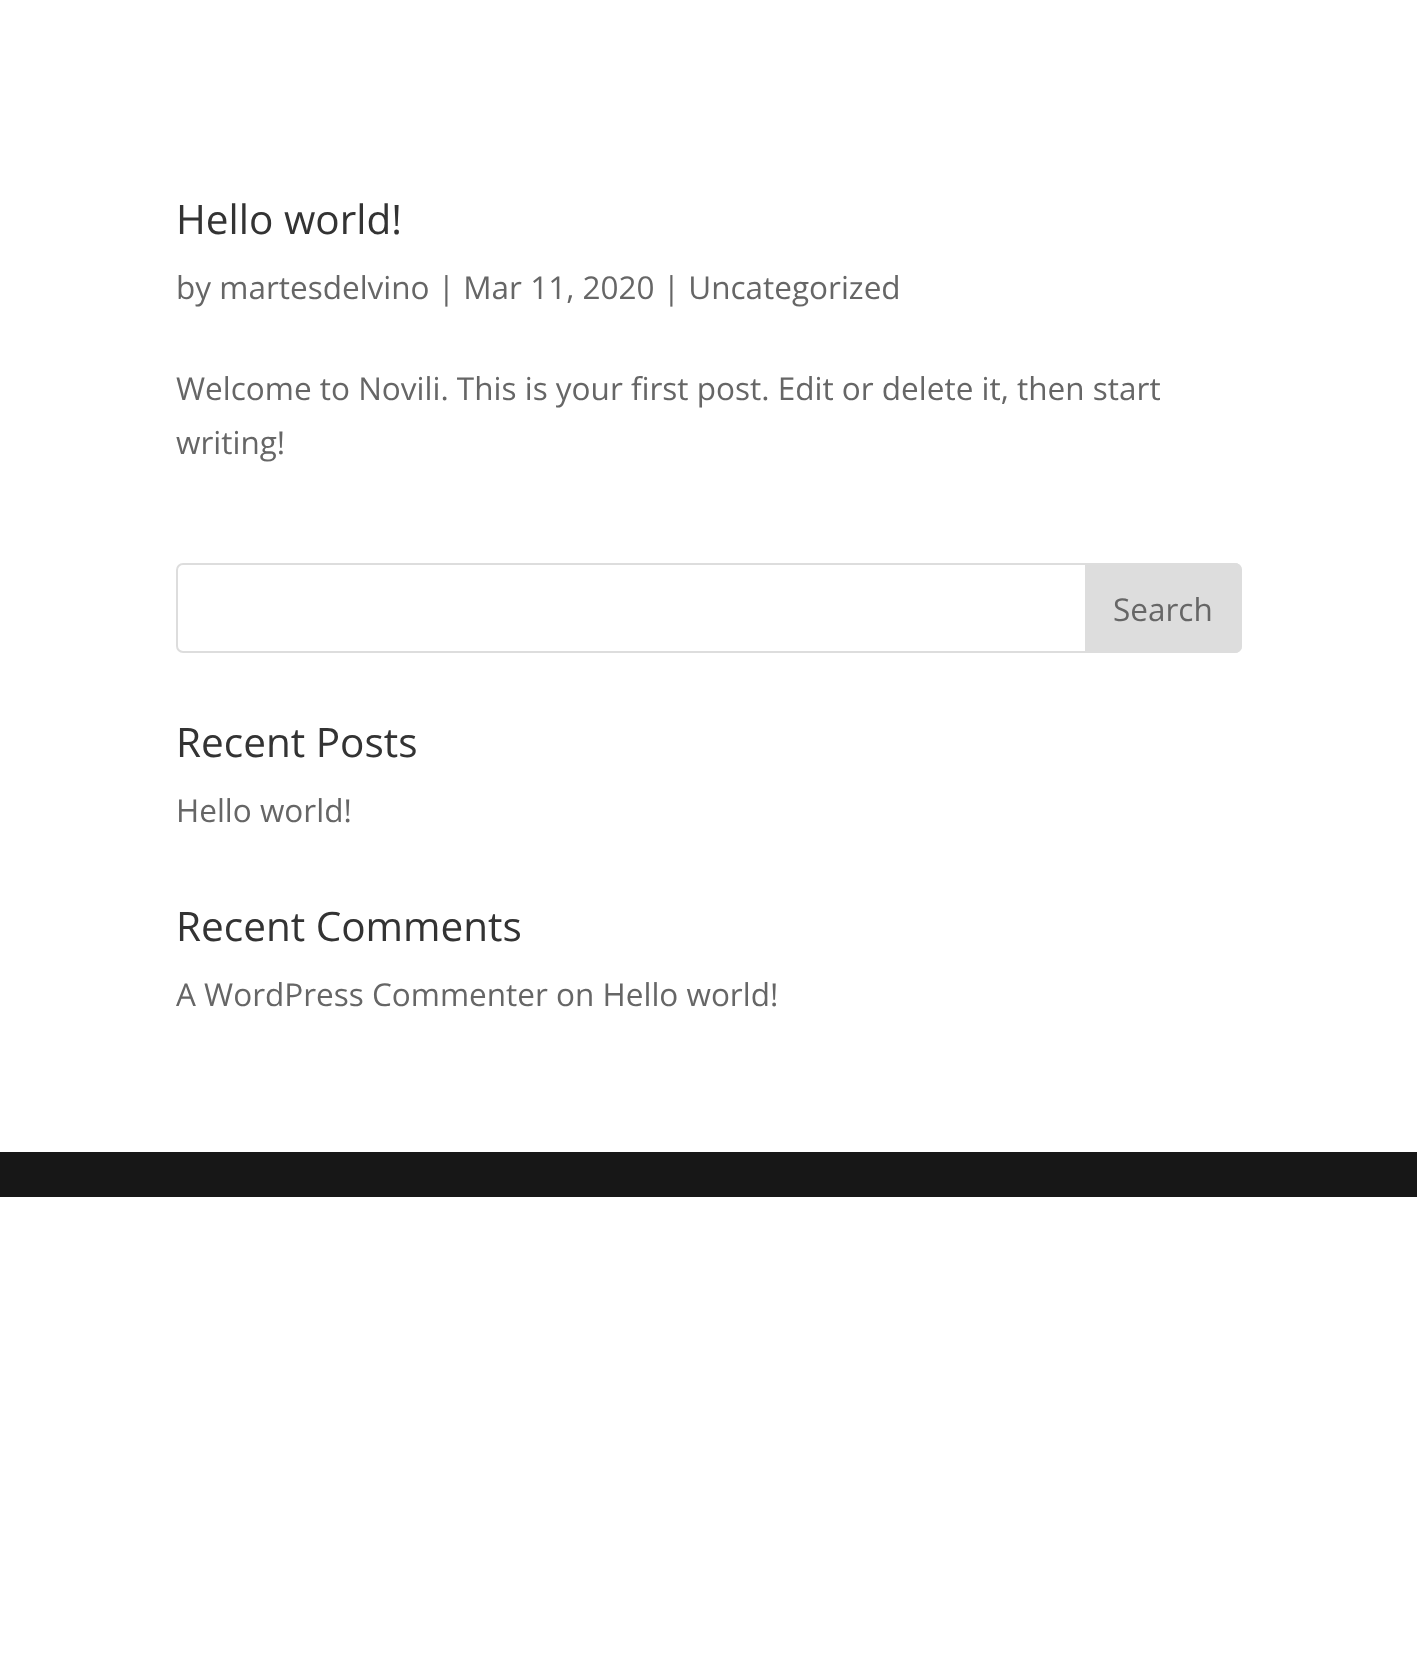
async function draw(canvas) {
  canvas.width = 1417;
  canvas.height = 1660;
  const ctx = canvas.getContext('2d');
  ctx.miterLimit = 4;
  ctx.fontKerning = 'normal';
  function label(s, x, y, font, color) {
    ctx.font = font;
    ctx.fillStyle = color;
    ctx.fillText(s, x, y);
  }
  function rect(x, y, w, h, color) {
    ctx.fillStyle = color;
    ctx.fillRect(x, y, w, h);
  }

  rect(0, 0, 1417, 1660, '#fff');
  label('Hello world!', 176, 234, '40.5px Open Sans', '#333');
  label('by martesdelvino | Mar 11, 2020 | Uncategorized', 176, 299, '31.5px Open Sans', '#666');
  label('Welcome to Novili. This is your first post. Edit or delete it, then start', 176, 400, '31.5px Open Sans', '#666');
  label('writing!', 176, 454, '31.5px Open Sans', '#666');
  ctx.beginPath();
  ctx.roundRect(177, 564, 1064, 88, 6);
  ctx.strokeStyle = '#ddd';
  ctx.lineWidth = 2;
  ctx.stroke();
  ctx.fillStyle = '#ddd';
  ctx.beginPath();
  ctx.roundRect(1086, 564, 155, 88, [0, 6, 6, 0]);
  ctx.fill();
  ctx.stroke();
  label('Search', 1113, 621, '31.5px Open Sans', '#666');
  label('Recent Posts', 176, 757, '40.5px Open Sans', '#333');
  label('Hello world!', 176, 822, '31.5px Open Sans', '#666');
  label('Recent Comments', 176, 941, '40.5px Open Sans', '#333');
  label('A WordPress Commenter on Hello world!', 176, 1006, '31.5px Open Sans', '#666');
  rect(0, 1152, 1417, 45, '#171717');
}

draw(document.querySelector('canvas'));
